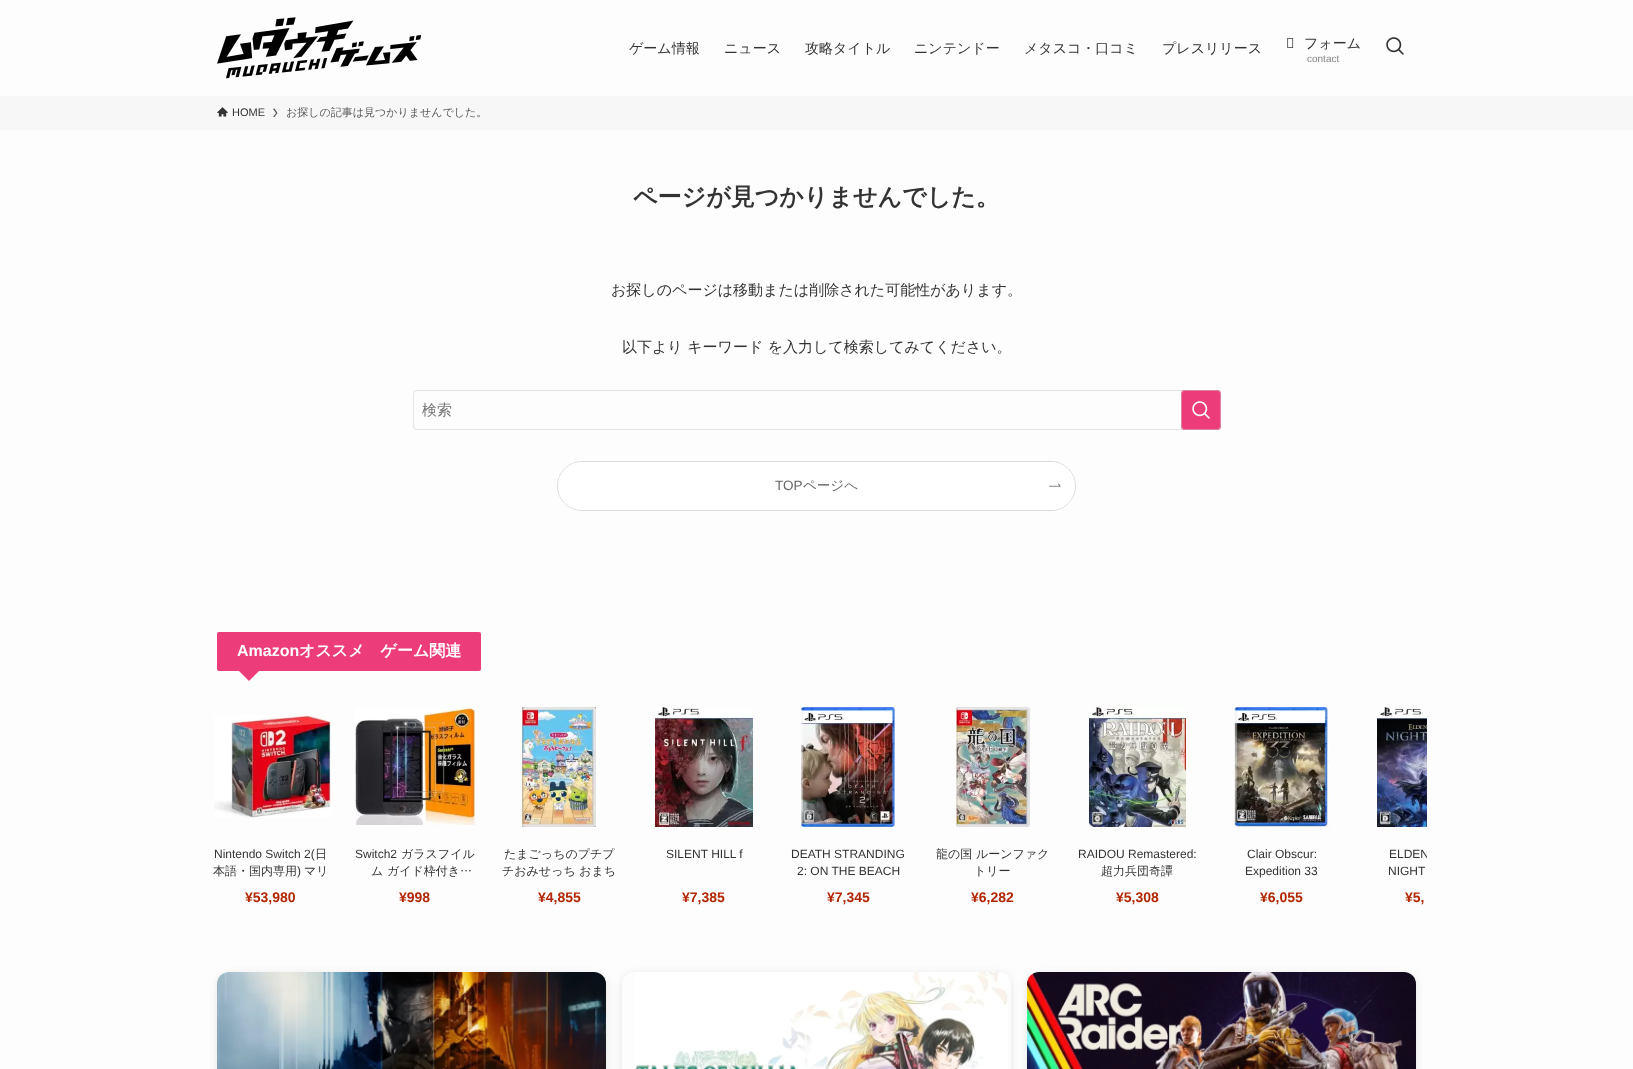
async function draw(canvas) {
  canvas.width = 1633;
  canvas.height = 1069;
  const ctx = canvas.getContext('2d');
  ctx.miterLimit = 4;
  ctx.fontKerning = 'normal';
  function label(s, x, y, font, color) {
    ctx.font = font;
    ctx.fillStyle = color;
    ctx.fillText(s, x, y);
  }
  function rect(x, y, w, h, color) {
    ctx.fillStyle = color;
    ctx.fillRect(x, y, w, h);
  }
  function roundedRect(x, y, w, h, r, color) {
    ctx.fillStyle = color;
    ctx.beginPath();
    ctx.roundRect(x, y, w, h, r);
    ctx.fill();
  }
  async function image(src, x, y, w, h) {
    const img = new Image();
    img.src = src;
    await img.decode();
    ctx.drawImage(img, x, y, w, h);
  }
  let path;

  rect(0, 0, 1633, 1069, '#fdfdfd');
  await image('assets/img1.png', 217, 17, 204, 62);
  label('ゲーム情報', 629, 53, '500 14px WenQuanYi Zen Hei', '#333');
  label('ニュース', 724, 53, '500 14px WenQuanYi Zen Hei', '#333');
  label('攻略タイトル', 805, 53, '500 14px WenQuanYi Zen Hei', '#333');
  label('ニンテンドー', 914, 53, '500 14px WenQuanYi Zen Hei', '#333');
  label('メタスコ・口コミ', 1024, 53, '500 14px WenQuanYi Zen Hei', '#333');
  label('プレスリリース', 1162, 53, '500 14px WenQuanYi Zen Hei', '#333');
  await image('assets/img2.png', 1287, 38, 7, 10);
  label('フォーム', 1304, 48, '500 14px WenQuanYi Zen Hei', '#333');
  label('contact', 1307, 62, '10px Liberation Sans', '#848484');
  await image('assets/img3.png', 1386, 37, 18, 18);
  rect(0, 96, 1633, 34, '#f7f7f7');
  await image('assets/img4.png', 217, 107, 11, 10);
  label('HOME', 232, 116, '11px Liberation Sans', '#333');
  ctx.fillStyle = '#5a5a5a';
  path = new Path2D('M274.5 108.5L273 109L276 113L273 117H274.5L277.5 113Z');
  ctx.fill(path);
  label('お探しの記事は見つかりませんでした。', 286, 116, '500 11px WenQuanYi Zen Hei', '#5a5a5a');
  label('ページが見つかりませんでした。', 633, 205, 'bold 24px WenQuanYi Zen Hei', '#333');
  label('お探しのページは移動または削除された可能性があります。', 611, 295, '500 15px WenQuanYi Zen Hei', '#333');
  label('以下より キーワード を入力して検索してみてください。', 622, 352, '500 15px WenQuanYi Zen Hei', '#333');
  ctx.beginPath();
  ctx.roundRect(413.5, 390.5, 807, 39, 3.5);
  ctx.strokeStyle = '#e3e3e3';
  ctx.stroke();
  label('検索', 422, 415, '500 15px WenQuanYi Zen Hei', '#757575');
  roundedRect(1181, 390, 40, 40, 4, '#ec3c7a');
  ctx.beginPath();
  ctx.roundRect(1181.5, 390.5, 39, 39, 3.5);
  ctx.strokeStyle = '#c7c7c780';
  ctx.stroke();
  await image('assets/img5.png', 1192, 401, 18, 18);
  ctx.beginPath();
  ctx.roundRect(557.5, 461.5, 518, 49, 24.5);
  ctx.strokeStyle = '#dcdcdc';
  ctx.stroke();
  roundedRect(558, 462, 517, 48, 24, '#fff');
  label('TOP', 775, 490, '13.5px Liberation Sans', '#666');
  label('ページへ', 803, 490, '500 13.5px WenQuanYi Zen Hei', '#666');
  await image('assets/img6.png', 1049, 483, 12, 4);
  roundedRect(217, 632, 264, 39, 2, '#ec3c7a');
  label('Amazon', 237, 656, 'bold 16px Liberation Sans', '#fff');
  label('オススメ　ゲーム関連', 299, 656, 'bold 16px WenQuanYi Zen Hei', '#fff');
  ctx.fillStyle = '#ec3c7a';
  path = new Path2D('M237 669H261L249 681Z');
  ctx.fill(path);
  await image('assets/img7.png', 214, 715, 117, 103);
  label('Nintendo Switch 2(', 214, 858, '12px Liberation Sans', '#333');
  label('日', 315, 858, '500 12px WenQuanYi Zen Hei', '#333');
  label('本語・国内専用', 213, 875, '500 12px WenQuanYi Zen Hei', '#333');
  label(')', 297, 875, '12px Liberation Sans', '#333');
  label('マリ', 304, 875, '500 12px WenQuanYi Zen Hei', '#333');
  label('¥53,980', 245, 902, 'bold 14px Liberation Sans', '#b12704');
  await image('assets/img8.png', 355, 708, 120, 117);
  label('Switch2', 355, 858, '12px Liberation Sans', '#333');
  label('ガラスフイル', 401, 858, '500 12px WenQuanYi Zen Hei', '#333');
  label('ム ガイド枠付き…', 371, 875, '500 12px WenQuanYi Zen Hei', '#333');
  label('¥998', 399, 902, 'bold 14px Liberation Sans', '#b12704');
  await image('assets/img9.png', 522, 707, 74, 120);
  label('たまごっちのプチプ', 504, 858, '500 12px WenQuanYi Zen Hei', '#333');
  label('チおみせっち おまち', 502, 875, '500 12px WenQuanYi Zen Hei', '#333');
  label('¥4,855', 538, 902, 'bold 14px Liberation Sans', '#b12704');
  await image('assets/img10.png', 655, 707, 98, 120);
  label('SILENT HILL f', 666, 858, '12px Liberation Sans', '#333');
  label('¥7,385', 682, 902, 'bold 14px Liberation Sans', '#b12704');
  await image('assets/img11.png', 801, 707, 94, 120);
  label('DEATH STRANDING', 791, 858, '12px Liberation Sans', '#333');
  label('2: ON THE BEACH', 797, 875, '12px Liberation Sans', '#333');
  label('¥7,345', 827, 902, 'bold 14px Liberation Sans', '#b12704');
  await image('assets/img12.png', 956, 707, 74, 120);
  label('龍の国 ルーンファク', 936, 858, '500 12px WenQuanYi Zen Hei', '#333');
  label('トリー', 974, 875, '500 12px WenQuanYi Zen Hei', '#333');
  label('¥6,282', 971, 902, 'bold 14px Liberation Sans', '#b12704');
  await image('assets/img13.png', 1089, 707, 97, 120);
  label('RAIDOU Remastered:', 1078, 858, '12px Liberation Sans', '#333');
  label('超力兵団奇譚', 1101, 875, '500 12px WenQuanYi Zen Hei', '#333');
  label('¥5,308', 1116, 902, 'bold 14px Liberation Sans', '#b12704');
  await image('assets/img14.png', 1234, 707, 96, 120);
  label('Clair Obscur:', 1247, 858, '12px Liberation Sans', '#333');
  label('Expedition 33', 1245, 875, '12px Liberation Sans', '#333');
  label('¥6,055', 1260, 902, 'bold 14px Liberation Sans', '#b12704');
  await image('assets/img15.png', 1377, 707, 50, 120);
  ctx.save();
  ctx.beginPath();
  ctx.rect(1366, 846, 61, 34);
  ctx.clip();
  label('ELDEN', 1389, 858, '12px Liberation Sans', '#333');
  ctx.restore();
  label('NIGHT', 1388, 875, '12px Liberation Sans', '#333');
  label('¥5,', 1405, 902, 'bold 14px Liberation Sans', '#b12704');
  ctx.fillStyle = '#0000001a';
  ctx.filter = 'blur(4px)';
  ctx.beginPath();
  ctx.roundRect(217, 974, 389, 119, 12);
  ctx.fill();
  ctx.filter = 'none';
  await image('assets/img16.png', 217, 972, 389, 97);
  ctx.save();
  path = new Path2D('M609 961H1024V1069H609ZM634 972H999C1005.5 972 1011 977.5 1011 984V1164C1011 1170.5 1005.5 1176 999 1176H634C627.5 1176 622 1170.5 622 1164V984C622 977.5 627.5 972 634 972Z');
  ctx.clip(path, 'evenodd');
  ctx.filter = 'blur(4px)';
  ctx.beginPath();
  ctx.roundRect(622, 974, 389, 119, 12);
  ctx.fill();
  ctx.filter = 'none';
  ctx.restore();
  await image('assets/img17.png', 635, 972, 373, 97);
  ctx.filter = 'blur(4px)';
  ctx.beginPath();
  ctx.roundRect(1027, 974, 389, 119, 12);
  ctx.fill();
  ctx.filter = 'none';
  await image('assets/img18.png', 1027, 972, 389, 97);
}

draw(document.querySelector('canvas'));
